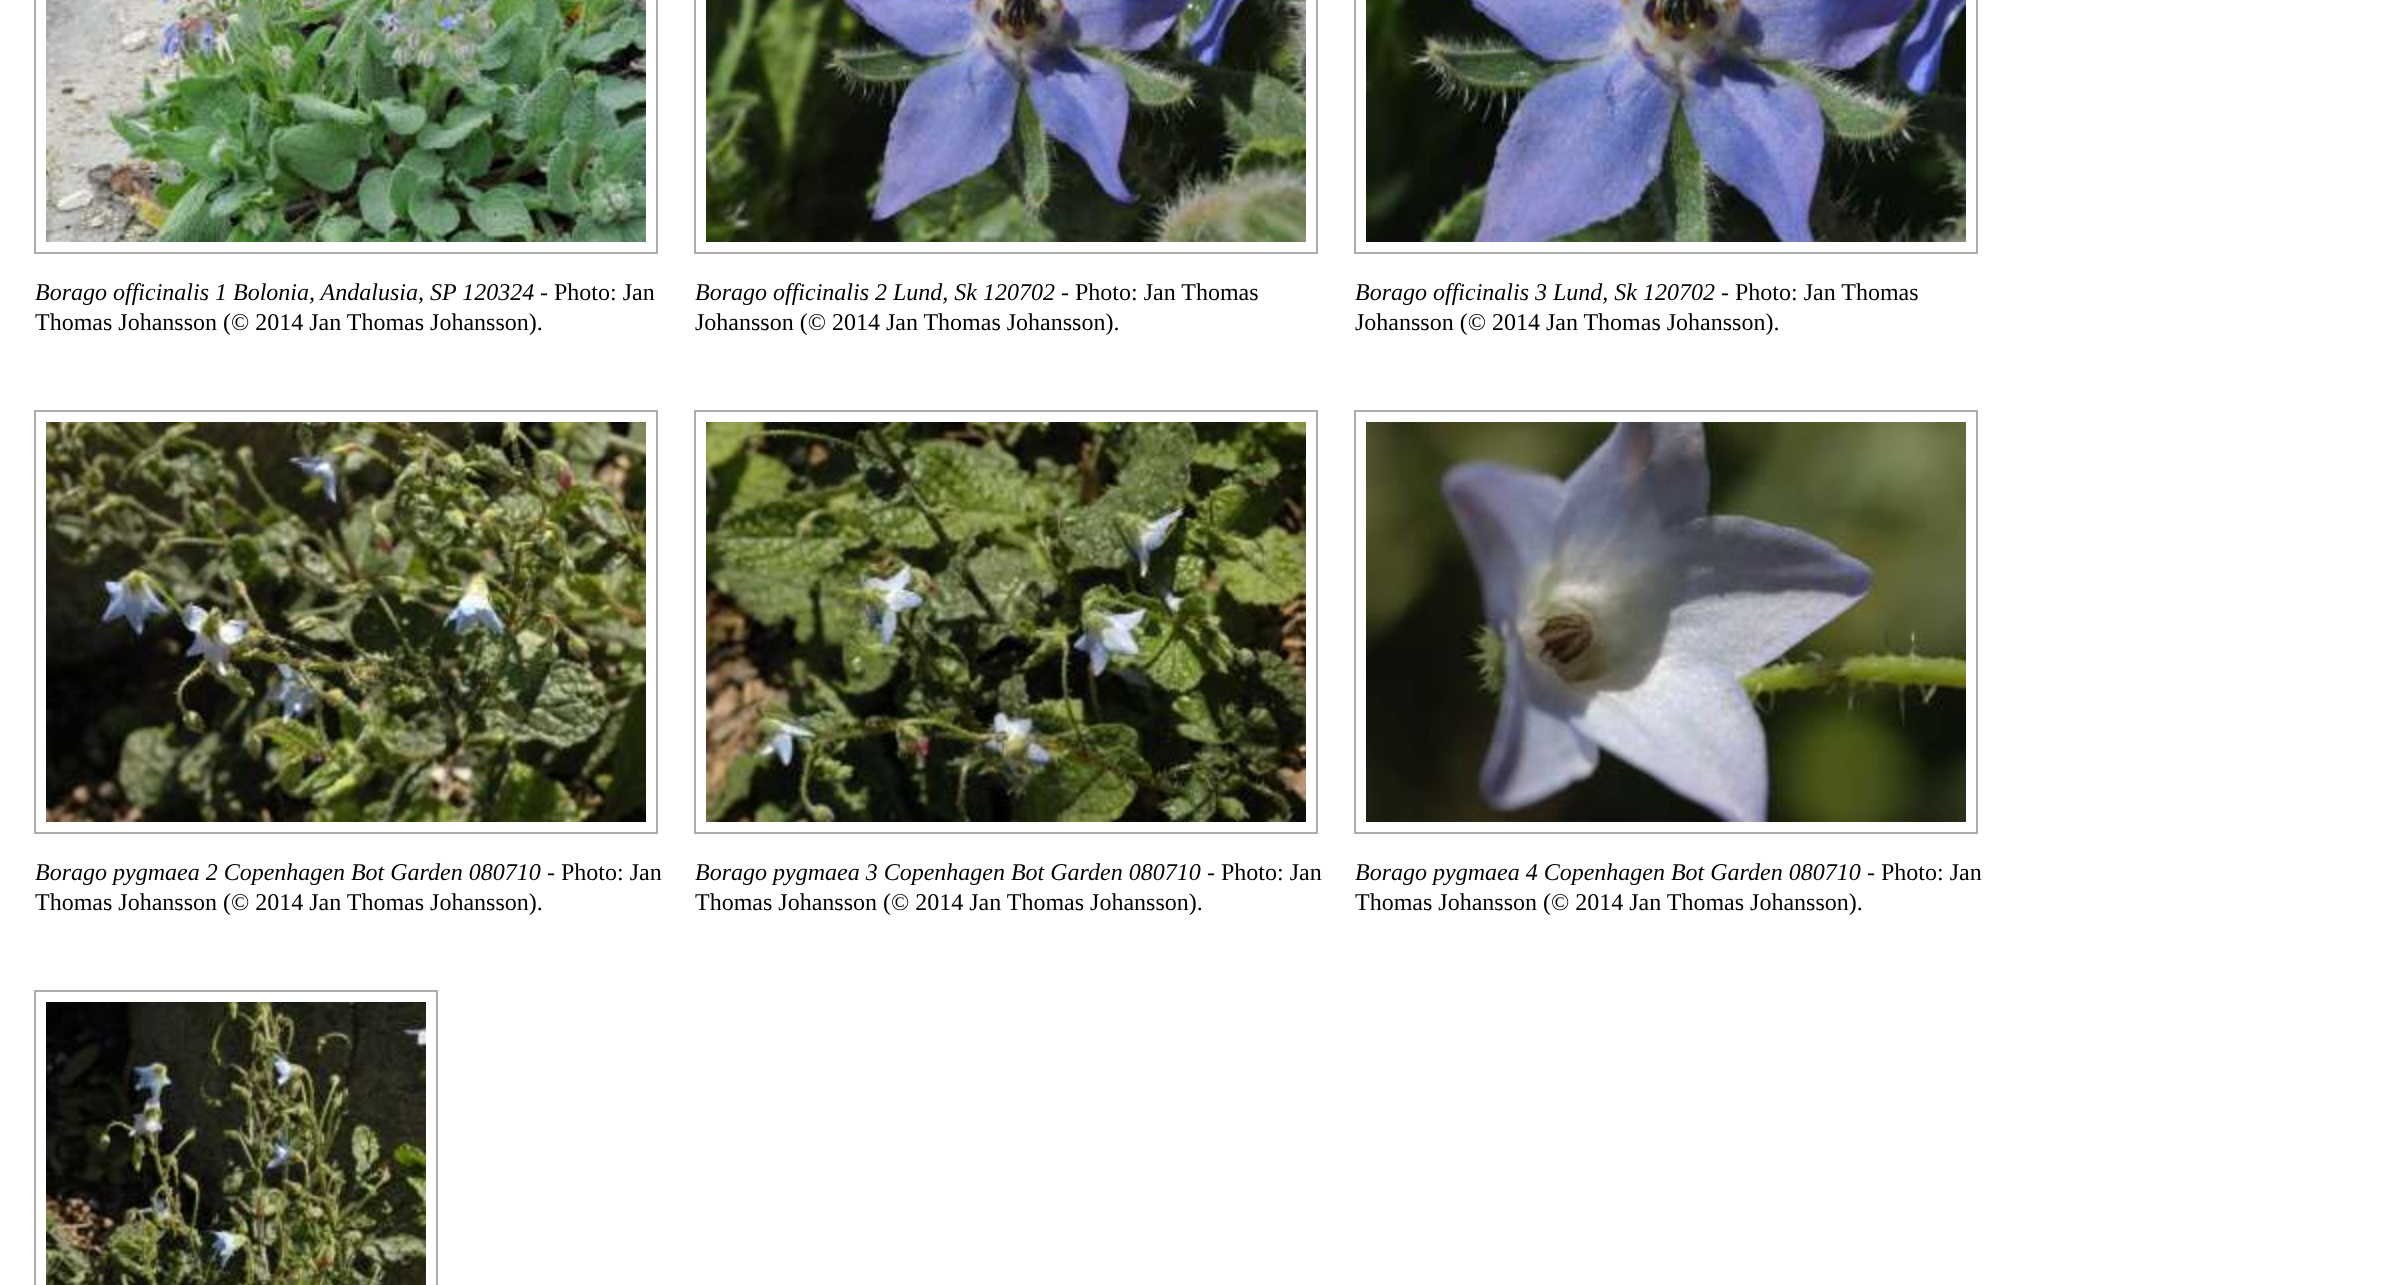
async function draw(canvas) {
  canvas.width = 2398;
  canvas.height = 1285;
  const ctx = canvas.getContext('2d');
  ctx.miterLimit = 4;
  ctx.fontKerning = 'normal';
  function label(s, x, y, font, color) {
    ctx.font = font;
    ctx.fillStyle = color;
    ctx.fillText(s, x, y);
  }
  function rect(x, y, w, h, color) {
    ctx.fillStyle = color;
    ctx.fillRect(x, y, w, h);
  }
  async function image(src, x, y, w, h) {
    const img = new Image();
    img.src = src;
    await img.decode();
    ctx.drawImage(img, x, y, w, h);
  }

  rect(0, 0, 2398, 1285, '#fff');
  ctx.strokeStyle = '#acacac';
  ctx.lineWidth = 2;
  ctx.strokeRect(35, -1, 622, 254);
  await image('assets/img1.png', 46, 0, 600, 242);
  label('Borago officinalis 1 Bolonia, Andalusia, SP 120324', 35, 300, 'italic 24px Liberation Serif', '#000');
  label('- Photo: Jan', 540, 300, '24px Liberation Serif', '#000');
  label('Thomas Johansson (© 2014 Jan Thomas Johansson).', 35, 330, '24px Liberation Serif', '#000');
  ctx.strokeRect(695, -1, 622, 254);
  await image('assets/img2.png', 706, 0, 600, 242);
  label('Borago officinalis 2 Lund, Sk 120702', 695, 300, 'italic 24px Liberation Serif', '#000');
  label('- Photo: Jan Thomas', 1061, 300, '24px Liberation Serif', '#000');
  label('Johansson (© 2014 Jan Thomas Johansson).', 695, 330, '24px Liberation Serif', '#000');
  ctx.strokeRect(1355, -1, 622, 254);
  await image('assets/img3.png', 1366, 0, 600, 242);
  label('Borago officinalis 3 Lund, Sk 120702', 1355, 300, 'italic 24px Liberation Serif', '#000');
  label('- Photo: Jan Thomas', 1721, 300, '24px Liberation Serif', '#000');
  label('Johansson (© 2014 Jan Thomas Johansson).', 1355, 330, '24px Liberation Serif', '#000');
  ctx.strokeRect(35, 411, 622, 422);
  await image('assets/img4.png', 46, 422, 600, 400);
  label('Borago pygmaea 2 Copenhagen Bot Garden 080710', 35, 880, 'italic 24px Liberation Serif', '#000');
  label('- Photo: Jan', 547, 880, '24px Liberation Serif', '#000');
  label('Thomas Johansson (© 2014 Jan Thomas Johansson).', 35, 910, '24px Liberation Serif', '#000');
  ctx.strokeRect(695, 411, 622, 422);
  await image('assets/img5.png', 706, 422, 600, 400);
  label('Borago pygmaea 3 Copenhagen Bot Garden 080710', 695, 880, 'italic 24px Liberation Serif', '#000');
  label('- Photo: Jan', 1207, 880, '24px Liberation Serif', '#000');
  label('Thomas Johansson (© 2014 Jan Thomas Johansson).', 695, 910, '24px Liberation Serif', '#000');
  ctx.strokeRect(1355, 411, 622, 422);
  await image('assets/img6.png', 1366, 422, 600, 400);
  label('Borago pygmaea 4 Copenhagen Bot Garden 080710', 1355, 880, 'italic 24px Liberation Serif', '#000');
  label('- Photo: Jan', 1867, 880, '24px Liberation Serif', '#000');
  label('Thomas Johansson (© 2014 Jan Thomas Johansson).', 1355, 910, '24px Liberation Serif', '#000');
  ctx.strokeRect(35, 991, 402, 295);
  await image('assets/img7.png', 46, 1002, 380, 283);
}

draw(document.querySelector('canvas'));
